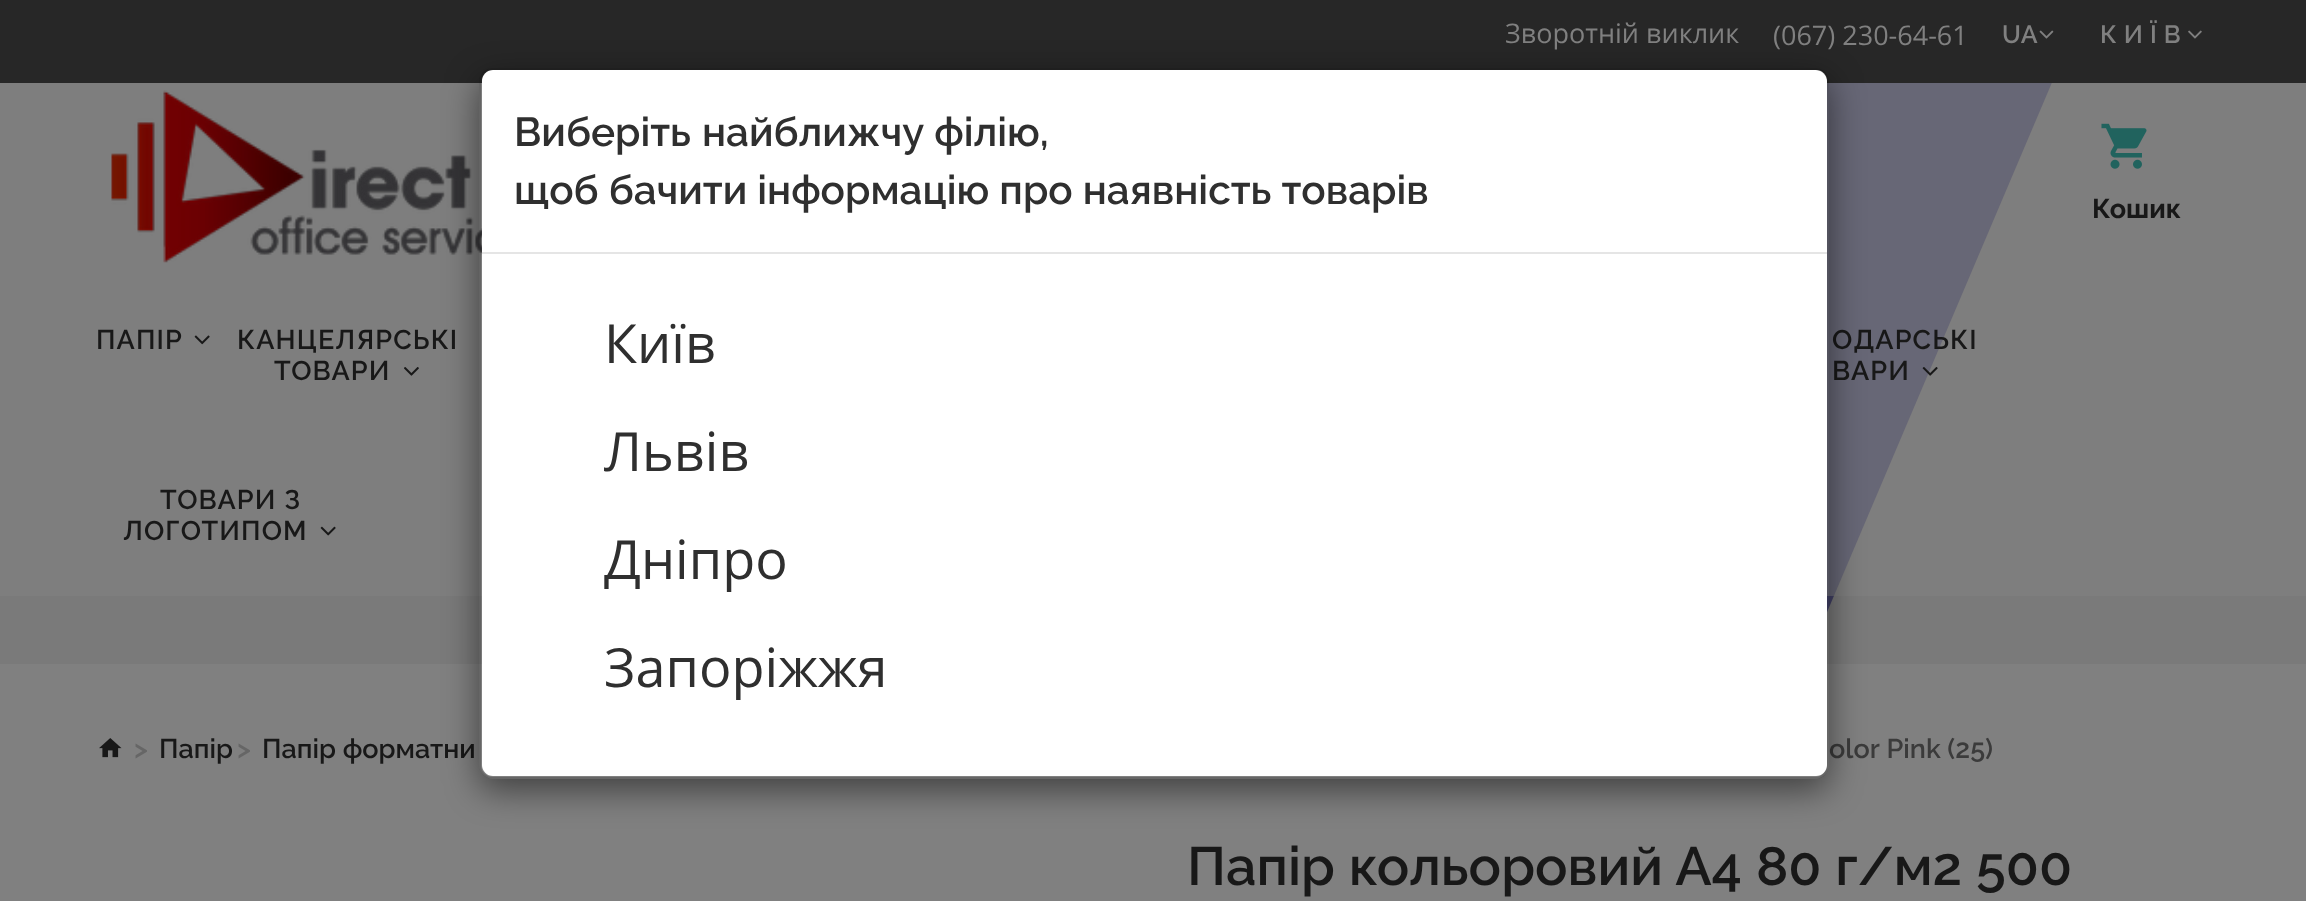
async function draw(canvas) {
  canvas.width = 2306;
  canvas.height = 901;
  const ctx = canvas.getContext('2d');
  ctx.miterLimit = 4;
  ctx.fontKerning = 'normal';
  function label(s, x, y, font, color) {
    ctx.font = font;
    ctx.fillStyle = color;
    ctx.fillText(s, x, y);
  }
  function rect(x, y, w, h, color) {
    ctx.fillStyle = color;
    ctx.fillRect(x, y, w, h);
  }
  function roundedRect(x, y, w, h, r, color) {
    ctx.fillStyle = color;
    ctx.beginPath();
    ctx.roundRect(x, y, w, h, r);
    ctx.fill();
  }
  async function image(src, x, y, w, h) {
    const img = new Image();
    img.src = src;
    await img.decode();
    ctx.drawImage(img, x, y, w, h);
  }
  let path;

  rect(0, 0, 2306, 901, '#808080');
  rect(0, 83, 2306, 581, '#7a7a7a');
  ctx.fillStyle = '#424166';
  path = new Path2D('M1469-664H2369L1805 664H905Z');
  ctx.fill(path);
  rect(0, 0, 2306, 83, '#272727');
  label('Зворотній виклик', 1505, 43, '27px Open Sans', '#808080');
  label('(067) 230-64-61', 1773, 45, '27px Open Sans', '#808080');
  label('UA', 2002, 43, '600 25px Raleway', '#808080');
  await image('assets/img1.png', 2039, 30, 15, 9);
  ctx.letterSpacing = '7px';
  label('КИЇВ', 2100, 43, '600 25px Raleway', '#808080');
  await image('assets/img2.png', 2188, 30, 14, 9);
  rect(0, 83, 2306, 513, '#80808099');
  await image('assets/img3.png', 111, 90, 371, 173);
  await image('assets/img4.png', 2101, 123, 46, 46);
  ctx.letterSpacing = '0px';
  label('Кошик', 2092, 218, 'bold 27px Raleway', '#181818');
  ctx.letterSpacing = '1.1px';
  label('ПАПІР', 96, 349, '600 27px Raleway', '#181818');
  await image('assets/img5.png', 194, 335, 16, 10);
  label('КАНЦЕЛЯРСЬКІ', 237, 349, '600 27px Raleway', '#181818');
  label('ТОВАРИ', 274, 380, '600 27px Raleway', '#181818');
  await image('assets/img6.png', 404, 367, 15, 9);
  label('ОДАРСЬКІ', 1832, 349, '600 27px Raleway', '#181818');
  label('ВАРИ', 1832, 380, '600 27px Raleway', '#181818');
  await image('assets/img7.png', 1922, 367, 16, 9);
  label('ТОВАРИ З', 160, 509, '600 27px Raleway', '#181818');
  label('ЛОГОТИПОМ', 123, 540, '600 27px Raleway', '#181818');
  await image('assets/img8.png', 320, 526, 16, 10);
  await image('assets/img9.png', 99, 738, 23, 20);
  ctx.letterSpacing = '0px';
  label('>', 134, 758, '600 27px Raleway', '#666');
  label('Папір', 159, 758, '600 27px Raleway', '#181818');
  label('>', 237, 758, '600 27px Raleway', '#666');
  label('Папір форматни', 262, 758, '600 27px Raleway', '#181818');
  label('olor Pink (25)', 1829, 758, '600 27px Raleway', '#3b3b3b');
  ctx.wordSpacing = '0.5px';
  label('Папір кольоровий А4 80 г/м2 500', 1187, 885, '600 54px Raleway', '#181818');
  ctx.save();
  path = new Path2D('M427 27H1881V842H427ZM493 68H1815C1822.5 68 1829 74.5 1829 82V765C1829 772.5 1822.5 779 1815 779H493C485.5 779 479 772.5 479 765V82C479 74.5 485.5 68 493 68Z');
  ctx.clip(path, 'evenodd');
  ctx.fillStyle = '#00000080';
  ctx.filter = 'blur(17px)';
  ctx.beginPath();
  ctx.roundRect(479, 79, 1350, 711, 14);
  ctx.fill();
  ctx.filter = 'none';
  ctx.restore();
  roundedRect(482, 70, 1345, 706, 11, '#fff');
  ctx.beginPath();
  ctx.roundRect(480, 69, 1348, 709, 13);
  ctx.strokeStyle = '#00000033';
  ctx.lineWidth = 2;
  ctx.stroke();
  rect(482, 252, 1345, 2, '#e5e5e5');
  ctx.wordSpacing = '1px';
  label('Виберіть найближчу філію,', 514, 146, '600 40.5px Raleway', '#2f2f2f');
  ctx.wordSpacing = '0px';
  label('щоб бачити інформацію про наявність товарів', 514, 204, '600 40.5px Raleway', '#2f2f2f');
  label('Київ', 604, 363, '54px Open Sans', '#2f2f2f');
  label('Львів', 604, 471, '54px Open Sans', '#2f2f2f');
  label('Дніпро', 604, 579, '54px Open Sans', '#2f2f2f');
  label('Запоріжжя', 604, 687, '54px Open Sans', '#2f2f2f');
}

draw(document.querySelector('canvas'));
